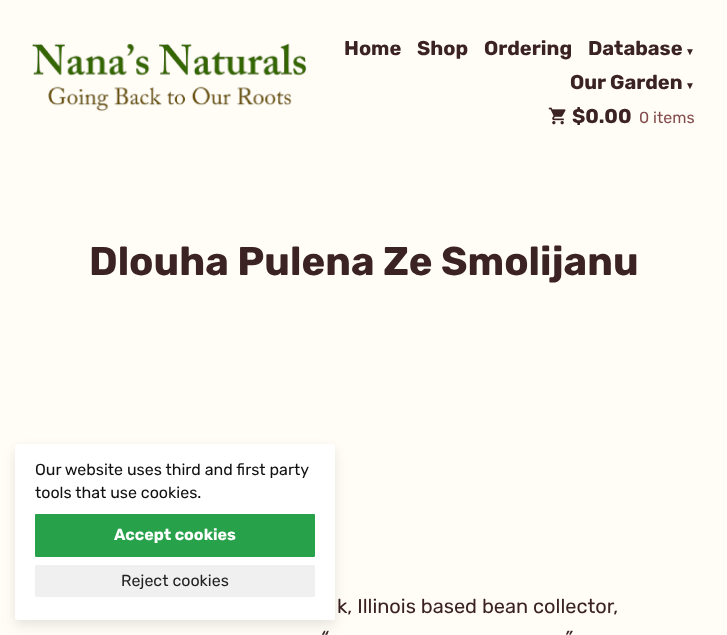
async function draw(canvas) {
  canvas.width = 727;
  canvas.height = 635;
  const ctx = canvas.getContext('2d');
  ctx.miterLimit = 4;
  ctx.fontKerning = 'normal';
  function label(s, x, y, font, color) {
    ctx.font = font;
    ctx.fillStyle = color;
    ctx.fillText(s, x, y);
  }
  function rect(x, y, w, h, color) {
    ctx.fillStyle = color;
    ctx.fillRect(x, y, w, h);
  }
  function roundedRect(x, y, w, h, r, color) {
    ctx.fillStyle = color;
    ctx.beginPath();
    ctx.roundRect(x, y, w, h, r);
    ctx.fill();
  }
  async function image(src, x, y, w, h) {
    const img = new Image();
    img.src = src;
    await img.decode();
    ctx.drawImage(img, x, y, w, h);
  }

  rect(0, 0, 727, 635, '#fffdf6');
  await image('assets/img1.png', 32, 43, 275, 69);
  label('Home', 344, 55, 'bold 20px Rubik', '#3c2323');
  label('Shop', 417, 55, 'bold 20px Rubik', '#3c2323');
  label('Ordering', 484, 55, 'bold 20px Rubik', '#3c2323');
  label('Database', 588, 55, 'bold 20px Rubik', '#3c2323');
  label('▼', 685, 55, 'bold 10px Liberation Sans', '#3c2323');
  label('Our Garden', 570, 89, 'bold 20px Rubik', '#3c2323');
  label('▼', 685, 89, 'bold 10px Liberation Sans', '#3c2323');
  await image('assets/img2.png', 548, 107, 18, 18);
  label('$0.00', 572, 123, 'bold 20px Rubik', '#3c2323');
  label('0 items', 639, 123, '16px Rubik', '#844d4d');
  label('Dlouha Pulena Ze Smolijanu', 89, 275, 'bold 40px Rubik', '#3c2323');
  label('k, Illinois based bean collector,', 337, 613, '20px Rubik', '#3c2323');
  label('“', 320, 645, 'italic 20px Rubik', '#3c2323');
  label('”', 564, 645, 'italic 20px Rubik', '#3c2323');
  ctx.fillStyle = '#0000000d';
  ctx.filter = 'blur(7.5px)';
  ctx.beginPath();
  ctx.roundRect(15, 452, 320, 176, 2);
  ctx.fill();
  ctx.filter = 'none';
  ctx.filter = 'blur(5px)';
  ctx.beginPath();
  ctx.roundRect(15, 447, 320, 176, 2);
  ctx.fill();
  ctx.filter = 'none';
  roundedRect(15, 444, 320, 176, 2, '#fff');
  label('Our website uses third and first party', 35, 475, '16px Rubik', '#111');
  label('tools that use cookies.', 35, 498, '16px Rubik', '#111');
  roundedRect(35, 514, 280, 43, 1, '#28a24a');
  label('Accept cookies', 114, 540, 'bold 16px Rubik', '#fff');
  roundedRect(35, 565, 280, 32, 1, '#f0f0f0');
  label('Reject cookies', 121, 586, '16px Rubik', '#222');
}

draw(document.querySelector('canvas'));
